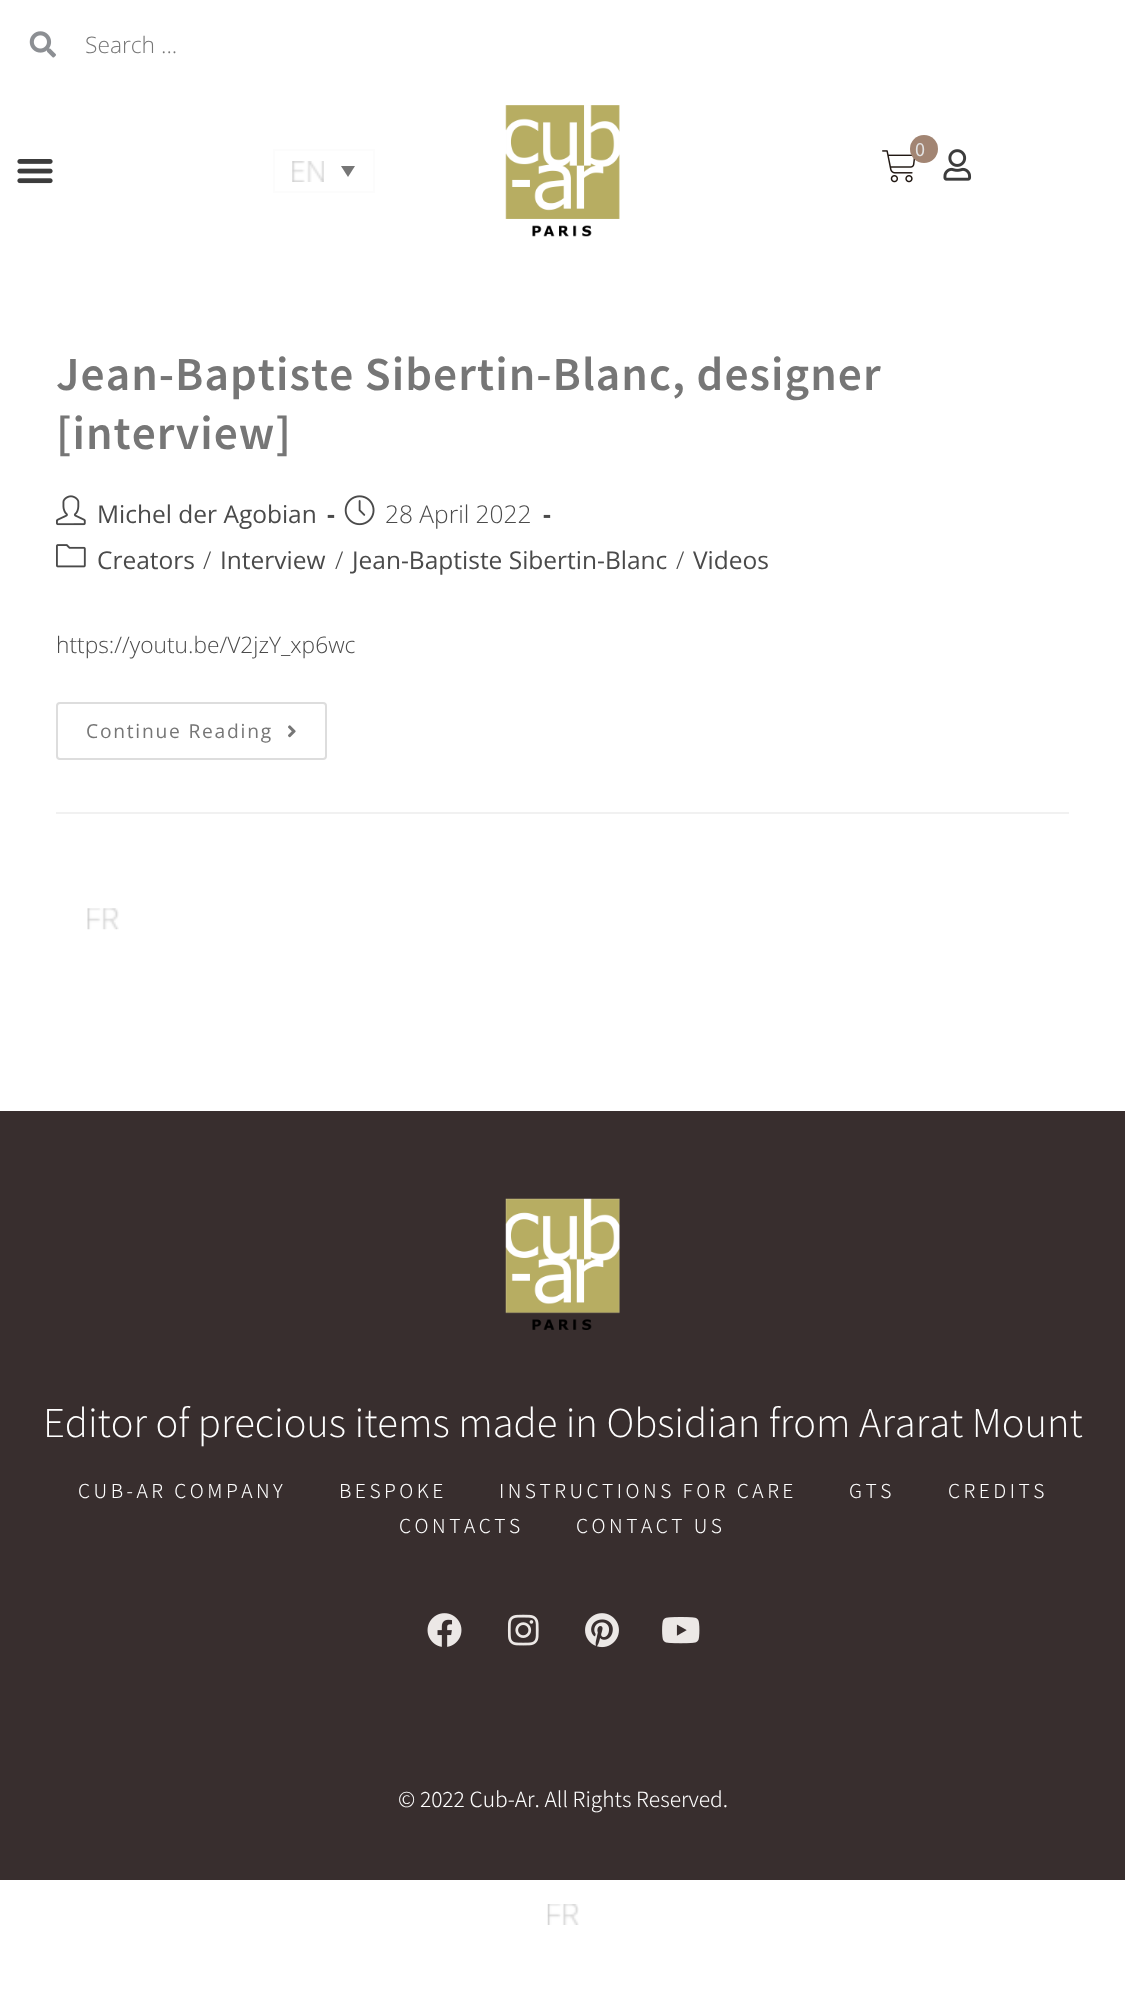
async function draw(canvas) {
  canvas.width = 1125;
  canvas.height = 2002;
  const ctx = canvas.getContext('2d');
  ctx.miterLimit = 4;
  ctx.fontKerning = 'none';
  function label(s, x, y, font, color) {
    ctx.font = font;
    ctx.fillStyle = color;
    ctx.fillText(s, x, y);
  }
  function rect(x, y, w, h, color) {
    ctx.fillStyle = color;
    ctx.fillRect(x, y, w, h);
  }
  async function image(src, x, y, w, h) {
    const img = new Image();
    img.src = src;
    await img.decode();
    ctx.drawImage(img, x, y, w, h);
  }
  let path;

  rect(0, 0, 1125, 2002, '#fff');
  await image('assets/img1.png', 29, 31, 27, 27);
  label('Search ...', 85, 53, '300 22.75px Open Sans', '#767676');
  await image('assets/img2.png', 17, 159, 36, 25);
  ctx.strokeStyle = '#fcfcfc';
  ctx.lineWidth = 2;
  ctx.strokeRect(274, 150, 100, 42);
  await image('assets/img3.png', 292, 161, 32, 21);
  path = new Path2D('M341 166H355L348 177Z');
  ctx.fill(path);
  await image('assets/img4.png', 505, 105, 115, 132);
  await image('assets/img5.png', 882, 150, 34, 33);
  ctx.fillStyle = '#a28573';
  ctx.beginPath();
  ctx.arc(924, 149, 14, 0, 2 * Math.PI);
  ctx.fill();
  ctx.letterSpacing = '7px';
  label('0', 915, 156, '18px Noto Sans HK', '#e3e3e3');
  await image('assets/img6.png', 943, 149, 29, 32);
  rect(56, 812, 1013, 2, '#f1f1f1');
  ctx.letterSpacing = '1.05px';
  label('Jean-Baptiste Sibertin-Blanc, designer', 56, 390, '600 42px Noto Sans HK', '#767676');
  label('[interview]', 56, 449, '600 42px Noto Sans HK', '#767676');
  await image('assets/img7.png', 56, 495, 30, 31);
  ctx.letterSpacing = '0px';
  label('Michel der Agobian', 97, 523, '24.5px Open Sans', '#4a4a4a');
  label('-', 327, 523, 'bold 24.5px Open Sans', '#4a4a4a');
  await image('assets/img8.png', 344, 495, 31, 31);
  label('28 April 2022', 385, 523, '300 24.5px Open Sans', '#4a4a4a');
  label('-', 543, 523, 'bold 24.5px Open Sans', '#4a4a4a');
  await image('assets/img9.png', 56, 544, 30, 24);
  label('Creators', 97, 569, '24.5px Open Sans', '#4a4a4a');
  label('/', 203, 569, '300 24.5px Open Sans', '#4a4a4a');
  label('Interview', 220, 569, '24.5px Open Sans', '#4a4a4a');
  label('/', 335, 569, '300 24.5px Open Sans', '#4a4a4a');
  label('Jean-Baptiste Sibertin-Blanc', 352, 569, '24.5px Open Sans', '#4a4a4a');
  label('/', 676, 569, '300 24.5px Open Sans', '#4a4a4a');
  label('Videos', 693, 569, '24.5px Open Sans', '#4a4a4a');
  label('https://youtu.be/V2jzY_xp6wc', 56, 653, '300 22.75px Open Sans', '#4a4a4a');
  ctx.beginPath();
  ctx.roundRect(57, 703, 269, 56, 3);
  ctx.strokeStyle = '#ddd';
  ctx.stroke();
  ctx.letterSpacing = '1.75px';
  label('Continue Reading', 86, 738, '19.25px Open Sans', '#767676');
  await image('assets/img10.png', 288, 725, 8, 13);
  await image('assets/img11.png', 87, 908, 32, 22);
  rect(0, 1111, 1125, 769, '#382e2e');
  await image('assets/img12.png', 505, 1198, 115, 132);
  ctx.letterSpacing = '0px';
  label('Editor of precious items made in Obsidian from Ararat Mount', 43, 1437, '200 38.5px Noto Sans HK', '#fff');
  ctx.letterSpacing = '3.5px';
  label('CUB-AR COMPANY', 78, 1498, '300 19.25px Noto Sans HK', '#fff');
  label('BESPOKE', 339, 1498, '300 19.25px Noto Sans HK', '#fff');
  label('INSTRUCTIONS FOR CARE', 499, 1498, '300 19.25px Noto Sans HK', '#fff');
  label('GTS', 849, 1498, '300 19.25px Noto Sans HK', '#fff');
  label('CREDITS', 948, 1498, '300 19.25px Noto Sans HK', '#fff');
  label('CONTACTS', 399, 1533, '300 19.25px Noto Sans HK', '#fff');
  label('CONTACT US', 576, 1533, '300 19.25px Noto Sans HK', '#fff');
  await image('assets/img13.png', 427, 1613, 35, 34);
  await image('assets/img14.png', 507, 1614, 32, 32);
  await image('assets/img15.png', 585, 1613, 34, 35);
  await image('assets/img16.png', 662, 1617, 38, 27);
  ctx.letterSpacing = '0px';
  label('© 2022 Cub-Ar. All Rights Reserved.', 398, 1807, '300 21px Noto Sans HK', '#fff');
  await image('assets/img17.png', 547, 1904, 32, 21);
}

draw(document.querySelector('canvas'));
